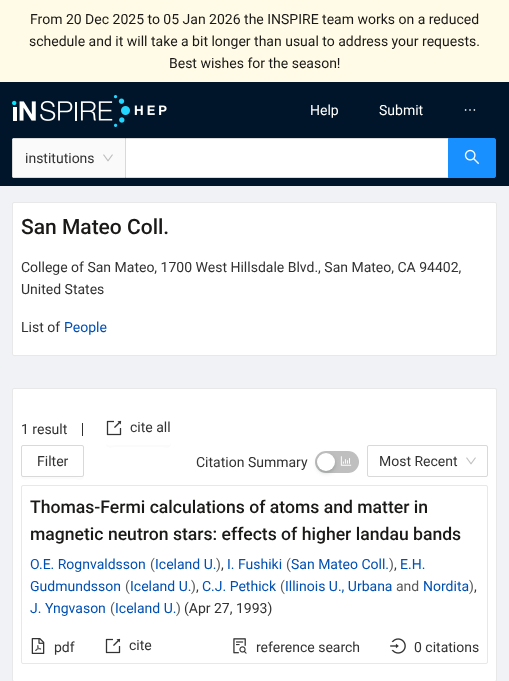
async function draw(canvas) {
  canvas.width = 509;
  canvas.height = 681;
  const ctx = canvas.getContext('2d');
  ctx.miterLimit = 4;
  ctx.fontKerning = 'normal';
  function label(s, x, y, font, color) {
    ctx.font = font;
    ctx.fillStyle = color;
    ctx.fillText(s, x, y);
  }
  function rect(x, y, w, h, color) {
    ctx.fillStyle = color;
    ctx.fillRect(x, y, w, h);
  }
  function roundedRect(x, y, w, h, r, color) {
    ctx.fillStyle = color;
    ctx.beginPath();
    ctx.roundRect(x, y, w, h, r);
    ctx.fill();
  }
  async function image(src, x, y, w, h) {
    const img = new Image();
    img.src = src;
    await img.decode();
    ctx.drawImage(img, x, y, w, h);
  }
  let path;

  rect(0, 0, 509, 681, '#f0f2f5');
  rect(0, 0, 509, 82, '#fffbe6');
  label('From 20 Dec 2025 to 05 Jan 2026 the INSPIRE team works on a reduced', 30, 24, '14px Roboto', '#1a1917');
  label('schedule and it will take a bit longer than usual to address your requests.', 29, 46, '14px Roboto', '#1a1917');
  label('Best wishes for the season!', 169, 68, '14px Roboto', '#1a1917');
  rect(0, 82, 509, 104, '#001529');
  await image('assets/img1.png', 12, 95, 155, 32);
  label('Help', 310, 115, '14px Roboto', '#fff');
  label('Submit', 379, 115, '14px Roboto', '#fff');
  await image('assets/img2.png', 464, 109, 12, 2);
  ctx.fillStyle = '#fafafa';
  ctx.beginPath();
  ctx.roundRect(12, 138, 113, 40, [2, 0, 0, 2]);
  ctx.fill();
  rect(13, 138, 112, 1, '#d9d9d9');
  rect(13, 177, 112, 1, '#d9d9d9');
  rect(12, 139, 1, 38, '#d9d9d9');
  label('institutions', 25, 163, '14px Roboto', '#323232');
  await image('assets/img3.png', 103, 154, 10, 8);
  ctx.fillStyle = '#fff';
  ctx.beginPath();
  ctx.rect(125.5, 138.5, 323, 39);
  ctx.fill();
  ctx.strokeStyle = '#d9d9d9';
  ctx.stroke();
  ctx.fillStyle = '#1890ff';
  ctx.beginPath();
  ctx.roundRect(448.5, 138.5, 47, 39, [0, 1.5, 1.5, 0]);
  ctx.fill();
  ctx.strokeStyle = '#1890ff';
  ctx.stroke();
  await image('assets/img4.png', 464, 149, 16, 16);
  ctx.fillStyle = '#fff';
  ctx.beginPath();
  ctx.roundRect(12.5, 202.5, 484, 153, 1.5);
  ctx.fill();
  ctx.strokeStyle = '#e8e8e8';
  ctx.stroke();
  label('San Mateo Coll.', 21, 234, '500 21px Roboto', '#1a1917');
  label('College of San Mateo, 1700 West Hillsdale Blvd., San Mateo, CA 94402,', 21, 272, '14px Roboto', '#323232');
  label('United States', 21, 294, '14px Roboto', '#323232');
  label('List of', 21, 332, '14px Roboto', '#323232');
  label('People', 64, 332, '14px Roboto', '#0050b3');
  ctx.fillStyle = '#fff';
  ctx.beginPath();
  ctx.roundRect(12.5, 388.5, 484, 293, 1.5);
  ctx.fill();
  ctx.stroke();
  label('1 result', 21, 434, '14px Roboto', '#323232');
  rect(82, 423, 1, 13, '#303030');
  ctx.fillStyle = '#fbfbfb';
  path = new Path2D('M106 443C106 450 111 447 118 447H159C166 447 171 450 171 443L170 445H118C114 445 106 447 106 443Z');
  ctx.fill(path);
  await image('assets/img5.png', 106, 420, 16, 16);
  label('cite all', 130, 432, '14px Roboto', '#323232');
  ctx.fillStyle = '#fbfbfb';
  path = new Path2D('M21 475C21 482 26 479 33 479H72C79 479 84 482 84 475C84 479 76 477 72 477H22Z');
  ctx.fill(path);
  ctx.beginPath();
  ctx.roundRect(21.5, 445.5, 62, 31, 1.5);
  ctx.strokeStyle = '#d9d9d9';
  ctx.stroke();
  label('Filter', 37, 466, '14px Roboto', '#323232');
  label('Citation Summary', 196, 467, '14px Roboto', '#323232');
  roundedRect(315, 451, 44, 22, 11, '#bfbfbf');
  await image('assets/img6.png', 340, 456, 12, 10);
  ctx.fillStyle = '#00230b33';
  ctx.filter = 'blur(2px)';
  ctx.beginPath();
  ctx.roundRect(317, 455, 18, 18, 9);
  ctx.fill();
  ctx.filter = 'none';
  ctx.fillStyle = '#fff';
  ctx.beginPath();
  ctx.arc(326, 462, 9, 0, 2 * Math.PI);
  ctx.fill();
  ctx.beginPath();
  ctx.roundRect(367.5, 445.5, 120, 31, 1.5);
  ctx.stroke();
  label('Most Recent', 379, 466, '14px Roboto', '#323232');
  await image('assets/img7.png', 466, 457, 10, 8);
  ctx.beginPath();
  ctx.roundRect(21.5, 485.5, 466, 178, 1.5);
  ctx.strokeStyle = '#e8e8e8';
  ctx.stroke();
  label('Thomas-Fermi calculations of atoms and matter in', 30, 513, '500 17.6px Roboto', '#1a1917');
  label('magnetic neutron stars: effects of higher landau bands', 30, 540, '500 17.6px Roboto', '#1a1917');
  label('O.E. Rognvaldsson', 30, 569, '14px Roboto', '#0050b3');
  label('(', 150, 569, '14px Roboto', '#595959');
  label('Iceland U.', 155, 569, '14px Roboto', '#0050b3');
  label(')', 216, 569, '14px Roboto', '#595959');
  label(',', 221, 569, '14px Roboto', '#323232');
  label('I. Fushiki', 227, 569, '14px Roboto', '#0050b3');
  label('(', 286, 569, '14px Roboto', '#595959');
  label('San Mateo Coll.', 291, 569, '14px Roboto', '#0050b3');
  label(')', 389, 569, '14px Roboto', '#595959');
  label(',', 394, 569, '14px Roboto', '#323232');
  label('E.H.', 400, 569, '14px Roboto', '#0050b3');
  label('Gudmundsson', 30, 591, '14px Roboto', '#0050b3');
  label('(', 125, 591, '14px Roboto', '#595959');
  label('Iceland U.', 130, 591, '14px Roboto', '#0050b3');
  label(')', 191, 591, '14px Roboto', '#595959');
  label(',', 196, 591, '14px Roboto', '#323232');
  label('C.J. Pethick', 202, 591, '14px Roboto', '#0050b3');
  label('(', 280, 591, '14px Roboto', '#595959');
  label('Illinois U., Urbana', 285, 591, '14px Roboto', '#0050b3');
  label('and', 396, 591, '14px Roboto', '#595959');
  label('Nordita', 423, 591, '14px Roboto', '#0050b3');
  label(')', 469, 591, '14px Roboto', '#595959');
  label(',', 474, 591, '14px Roboto', '#323232');
  label('J. Yngvason', 30, 613, '14px Roboto', '#0050b3');
  label('(', 110, 613, '14px Roboto', '#595959');
  label('Iceland U.', 115, 613, '14px Roboto', '#0050b3');
  label(')', 176, 613, '14px Roboto', '#595959');
  label('(Apr 27, 1993)', 184, 613, '14px Roboto', '#323232');
  await image('assets/img8.png', 31, 638, 14, 16);
  label('pdf', 54, 652, '14px Roboto', '#323232');
  await image('assets/img5.png', 105, 638, 16, 16);
  label('cite', 129, 650, '14px Roboto', '#323232');
  await image('assets/img9.png', 233, 638, 14, 16);
  label('reference search', 256, 652, '14px Roboto', '#323232');
  await image('assets/img10.png', 390, 638, 16, 16);
  label('0 citations', 414, 652, '14px Roboto', '#323232');
}

draw(document.querySelector('canvas'));
